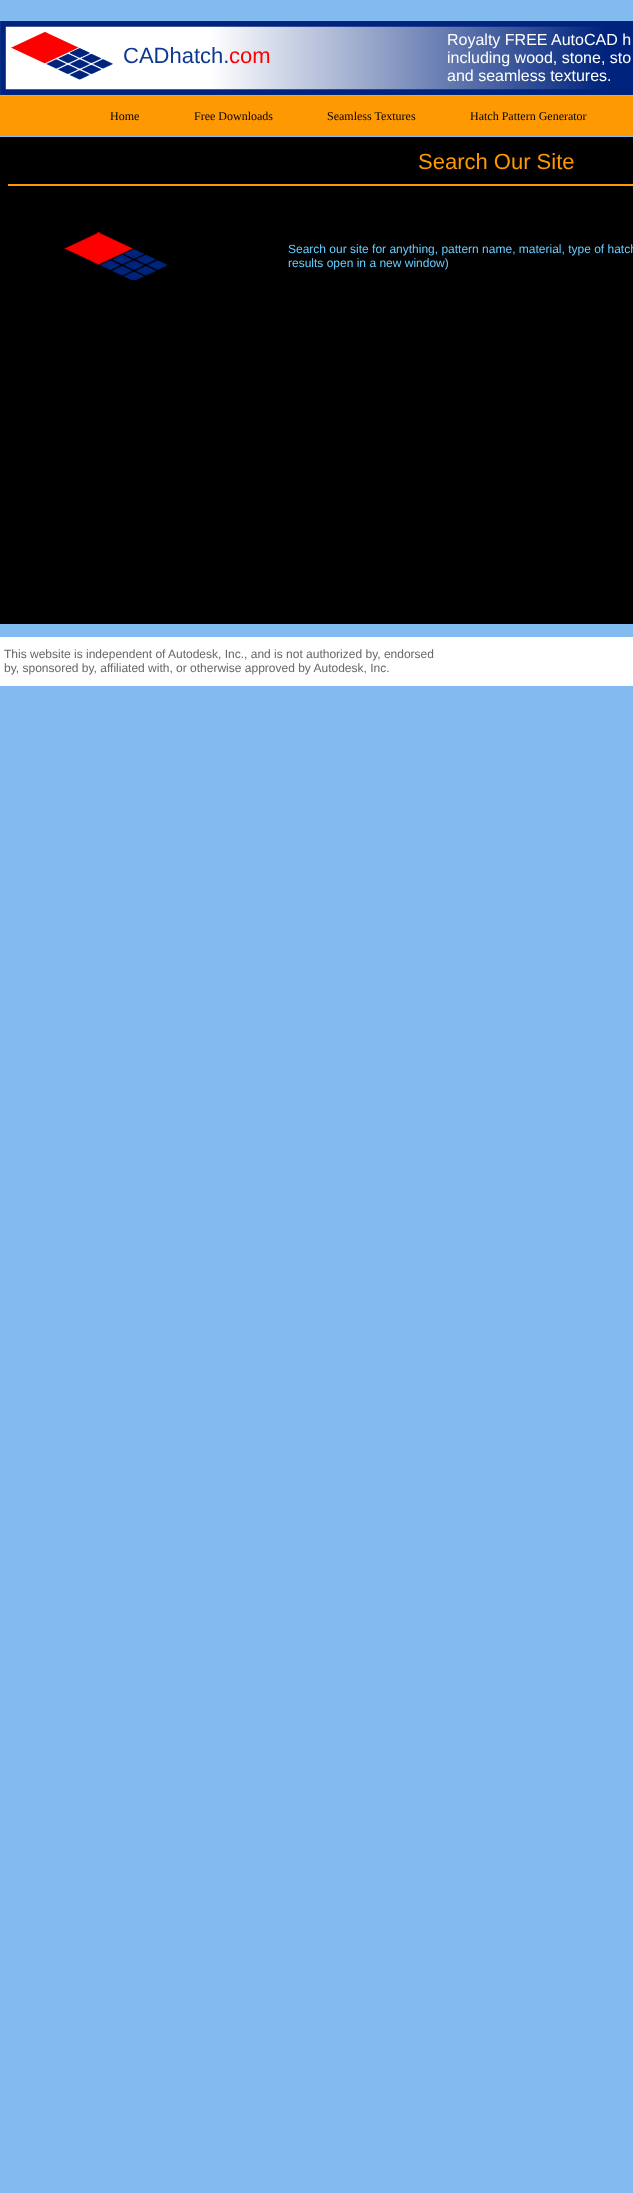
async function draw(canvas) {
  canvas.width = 633;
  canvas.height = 2193;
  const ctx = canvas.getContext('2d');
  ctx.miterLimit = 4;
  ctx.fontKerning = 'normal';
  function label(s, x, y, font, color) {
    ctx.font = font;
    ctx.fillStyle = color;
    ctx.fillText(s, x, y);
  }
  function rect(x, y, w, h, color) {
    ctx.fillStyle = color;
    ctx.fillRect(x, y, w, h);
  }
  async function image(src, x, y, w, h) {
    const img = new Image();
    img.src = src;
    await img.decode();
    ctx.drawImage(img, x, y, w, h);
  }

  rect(0, 0, 633, 2193, '#82bbf0');
  await image('assets/img1.png', 0, 21, 633, 74);
  await image('assets/img2.png', 11, 32, 102, 48);
  label('CADhatch.', 123, 63, '22px Liberation Sans', '#0f3893');
  label('com', 229, 63, '22px Liberation Sans', '#f00');
  label('Royalty FREE AutoCAD h', 447, 45, '16px Liberation Sans', '#fff');
  label('including wood, stone, sto', 447, 63, '16px Liberation Sans', '#fff');
  label('and seamless textures.', 447, 81, '16px Liberation Sans', '#fff');
  rect(0, 96, 633, 40, '#ff9902');
  label('Home', 110, 120, '12px Liberation Serif', '#000');
  label('Free Downloads', 194, 120, '12px Liberation Serif', '#000');
  label('Seamless Textures', 327, 120, '12px Liberation Serif', '#000');
  label('Hatch Pattern Generator', 470, 120, '12px Liberation Serif', '#000');
  rect(0, 137, 633, 487, '#000');
  label('Search Our Site', 418, 169, '22px Liberation Sans', '#ff9902');
  rect(8, 184, 625, 2, '#ff9902');
  await image('assets/img3.png', 64, 232, 103, 48);
  label('Search our site for anything, pattern name, material, type of hatch', 288, 253, '12px Liberation Sans', '#6cf');
  label('results open in a new window)', 288, 267, '12px Liberation Sans', '#6cf');
  rect(0, 637, 633, 49, '#fff');
  label('This website is independent of', 4, 658, '12px Liberation Sans', '#666');
  label('Autodesk, Inc., and is not authorized by, endorsed', 168, 658, '12px Liberation Sans', '#666');
  label('by, sponsored by, affiliated with, or otherwise approved by Autodesk, Inc.', 4, 672, '12px Liberation Sans', '#666');
}

draw(document.querySelector('canvas'));
